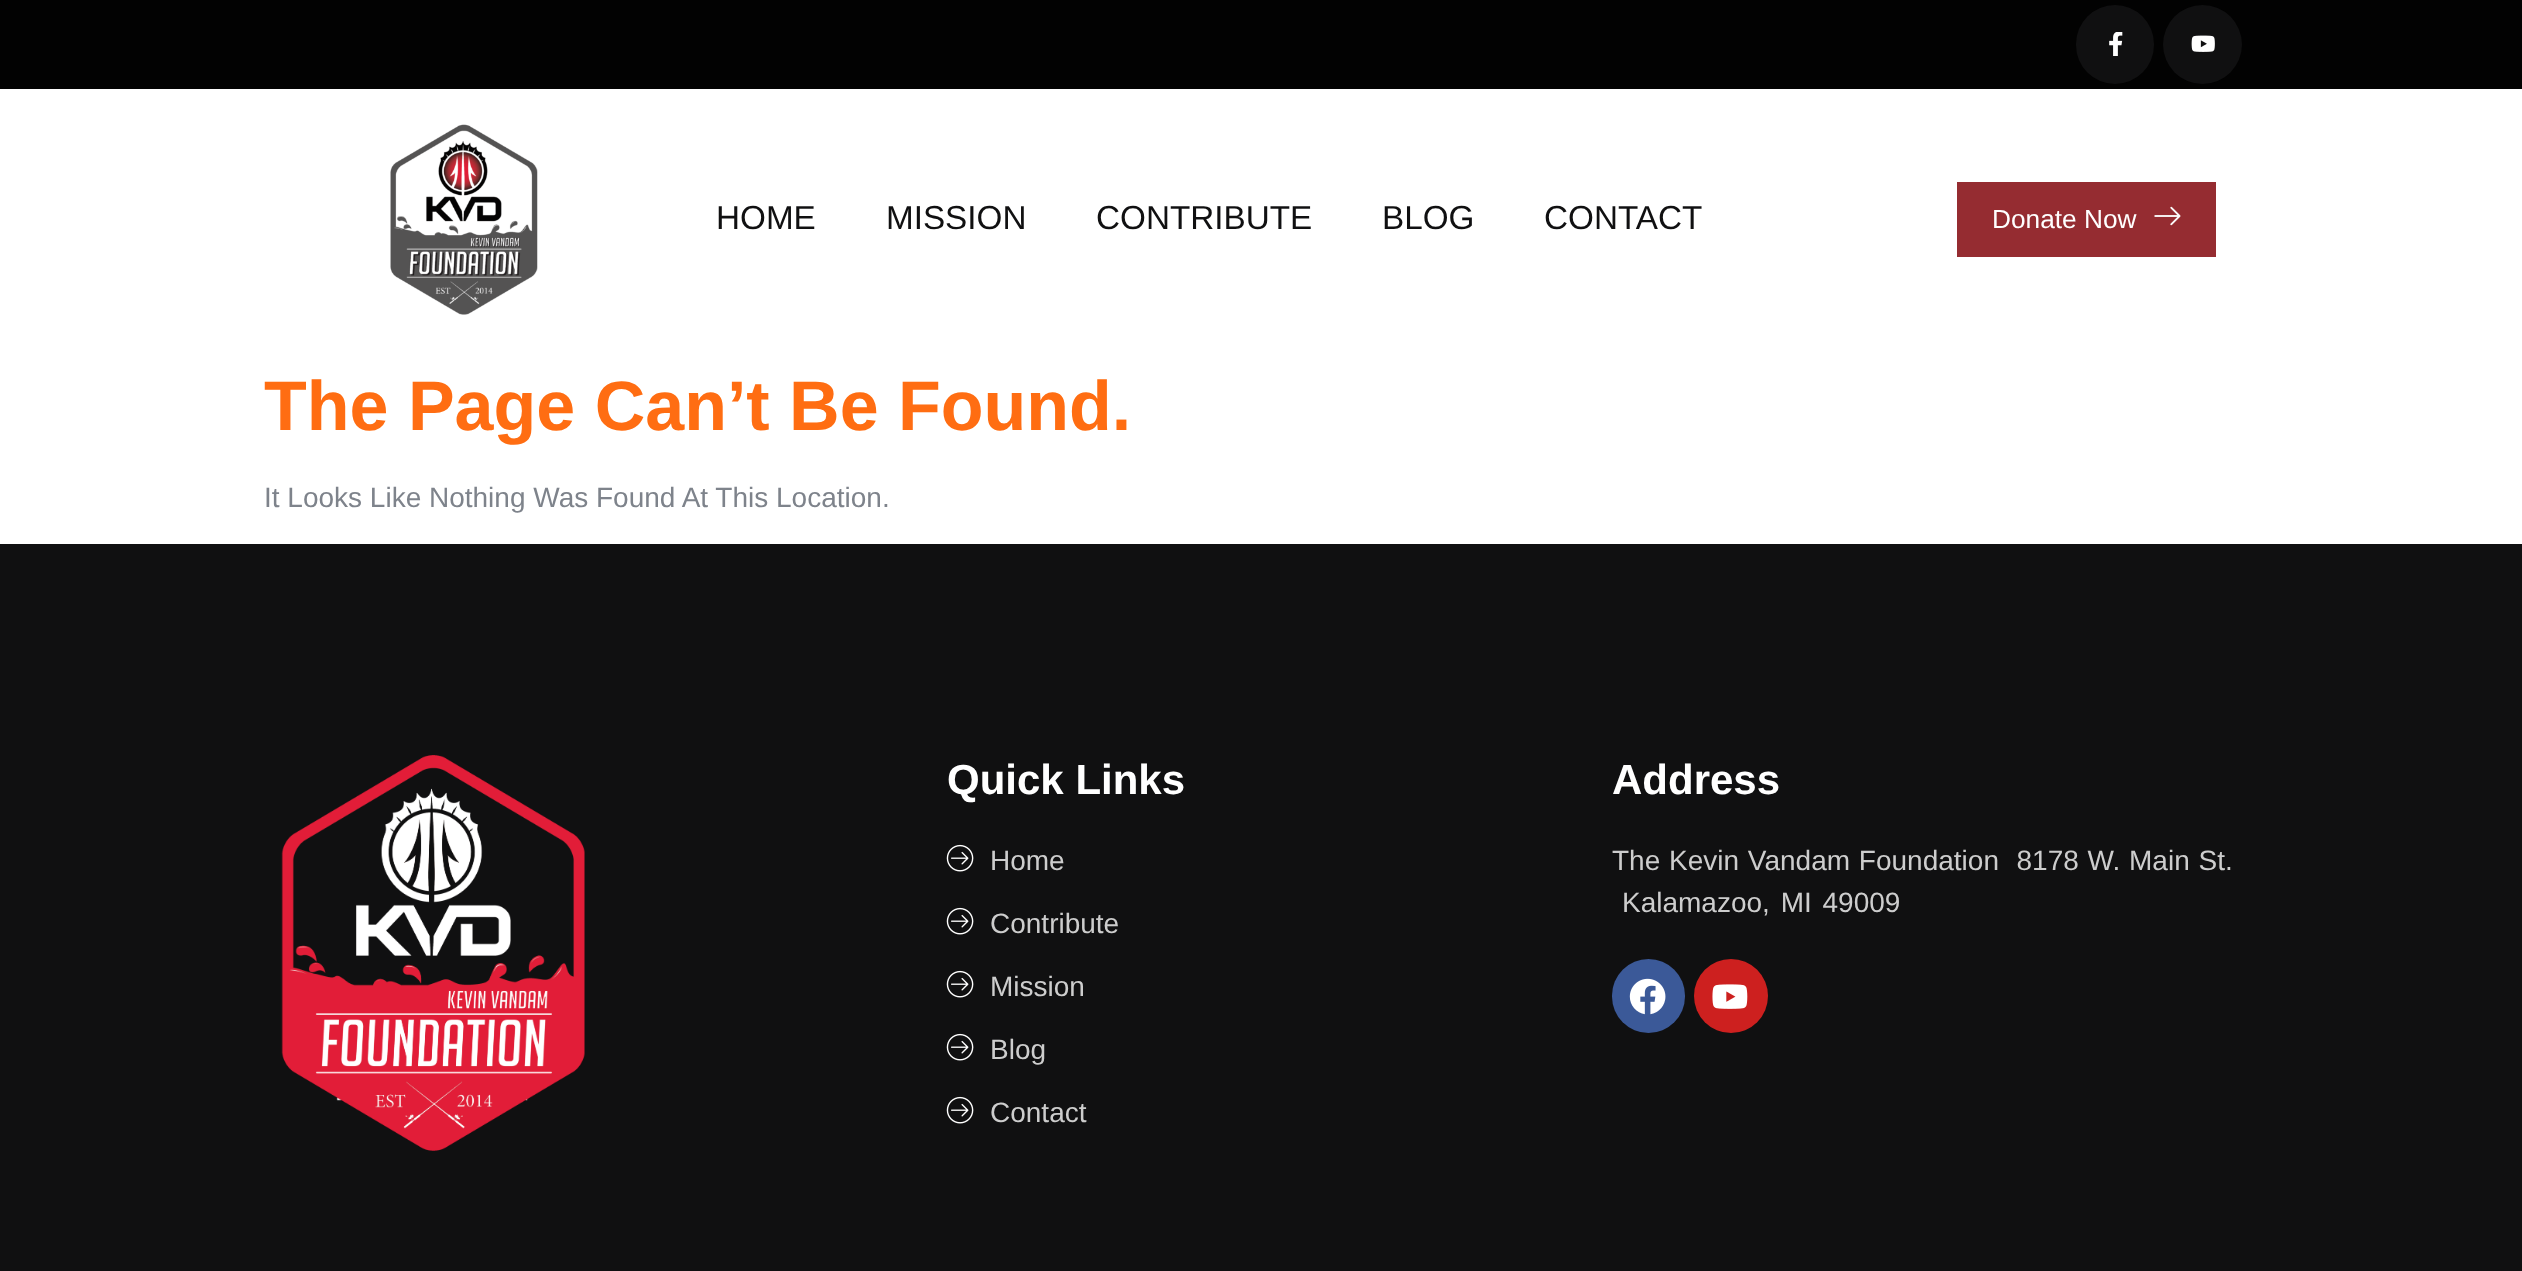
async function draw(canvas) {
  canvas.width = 2522;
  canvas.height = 1271;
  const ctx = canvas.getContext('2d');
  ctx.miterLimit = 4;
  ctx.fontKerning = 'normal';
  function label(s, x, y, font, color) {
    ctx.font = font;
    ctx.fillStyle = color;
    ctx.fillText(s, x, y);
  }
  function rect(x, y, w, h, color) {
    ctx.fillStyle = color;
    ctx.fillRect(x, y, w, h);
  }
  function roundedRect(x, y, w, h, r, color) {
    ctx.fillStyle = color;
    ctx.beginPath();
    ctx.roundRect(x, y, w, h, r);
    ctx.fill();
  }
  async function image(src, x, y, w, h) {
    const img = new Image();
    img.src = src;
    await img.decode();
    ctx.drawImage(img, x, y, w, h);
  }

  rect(0, 0, 2522, 1271, '#fff');
  rect(0, 0, 2522, 89, '#020202');
  roundedRect(2076, 5, 78, 79, 39, '#101011');
  await image('assets/img1.png', 2109, 32, 14, 24);
  ctx.beginPath();
  ctx.arc(2202.5, 44.5, 39.5, 0, 2 * Math.PI);
  ctx.fill();
  await image('assets/img2.png', 2191, 35, 24, 17);
  await image('assets/img3.png', 390, 124, 148, 191);
  label('HOME', 716, 229, '33.25px Liberation Sans', '#101011');
  label('MISSION', 886, 229, '33.25px Liberation Sans', '#101011');
  label('CONTRIBUTE', 1096, 229, '33.25px Liberation Sans', '#101011');
  label('BLOG', 1382, 229, '33.25px Liberation Sans', '#101011');
  label('CONTACT', 1544, 229, '33.25px Liberation Sans', '#101011');
  rect(1957, 182, 259, 75, '#952c31');
  label('Donate Now', 1992, 228, '26.25px Liberation Sans', '#fff');
  await image('assets/img4.png', 2154, 206, 27, 20);
  label('The Page Can’t Be Found.', 264, 430, 'bold 70px Liberation Sans', '#ff6d12');
  label('It Looks Like Nothing Was Found At This Location.', 264, 507, '28px Liberation Sans', '#7e838b');
  rect(0, 544, 2522, 727, '#101011');
  await image('assets/img5.png', 281, 755, 304, 396);
  label('Quick Links', 947, 794, 'bold 42px Liberation Sans', '#fff');
  await image('assets/img6.png', 946, 844, 28, 28);
  label('Home', 990, 870, '28px Liberation Sans', '#cdcdcd');
  await image('assets/img6.png', 946, 907, 28, 28);
  label('Contribute', 990, 933, '28px Liberation Sans', '#cdcdcd');
  await image('assets/img6.png', 946, 970, 28, 28);
  label('Mission', 990, 996, '28px Liberation Sans', '#cdcdcd');
  await image('assets/img6.png', 946, 1033, 28, 28);
  label('Blog', 990, 1059, '28px Liberation Sans', '#cdcdcd');
  await image('assets/img6.png', 946, 1096, 28, 28);
  label('Contact', 990, 1122, '28px Liberation Sans', '#cdcdcd');
  label('Address', 1612, 794, 'bold 42px Liberation Sans', '#fff');
  ctx.wordSpacing = '1px';
  label('The Kevin Vandam Foundation  8178 W. Main St.', 1612, 870, '28px Liberation Sans', '#cdcdcd');
  ctx.wordSpacing = '3px';
  label('Kalamazoo, MI 49009', 1622, 912, '28px Liberation Sans', '#cdcdcd');
  roundedRect(1612, 959, 73, 74, 36.5, '#3b5998');
  await image('assets/img7.png', 1629, 978, 37, 37);
  ctx.fillStyle = '#cd201f';
  ctx.beginPath();
  ctx.arc(1731, 996, 37, 0, 2 * Math.PI);
  ctx.fill();
  await image('assets/img8.png', 1712, 984, 36, 25);
}

draw(document.querySelector('canvas'));
